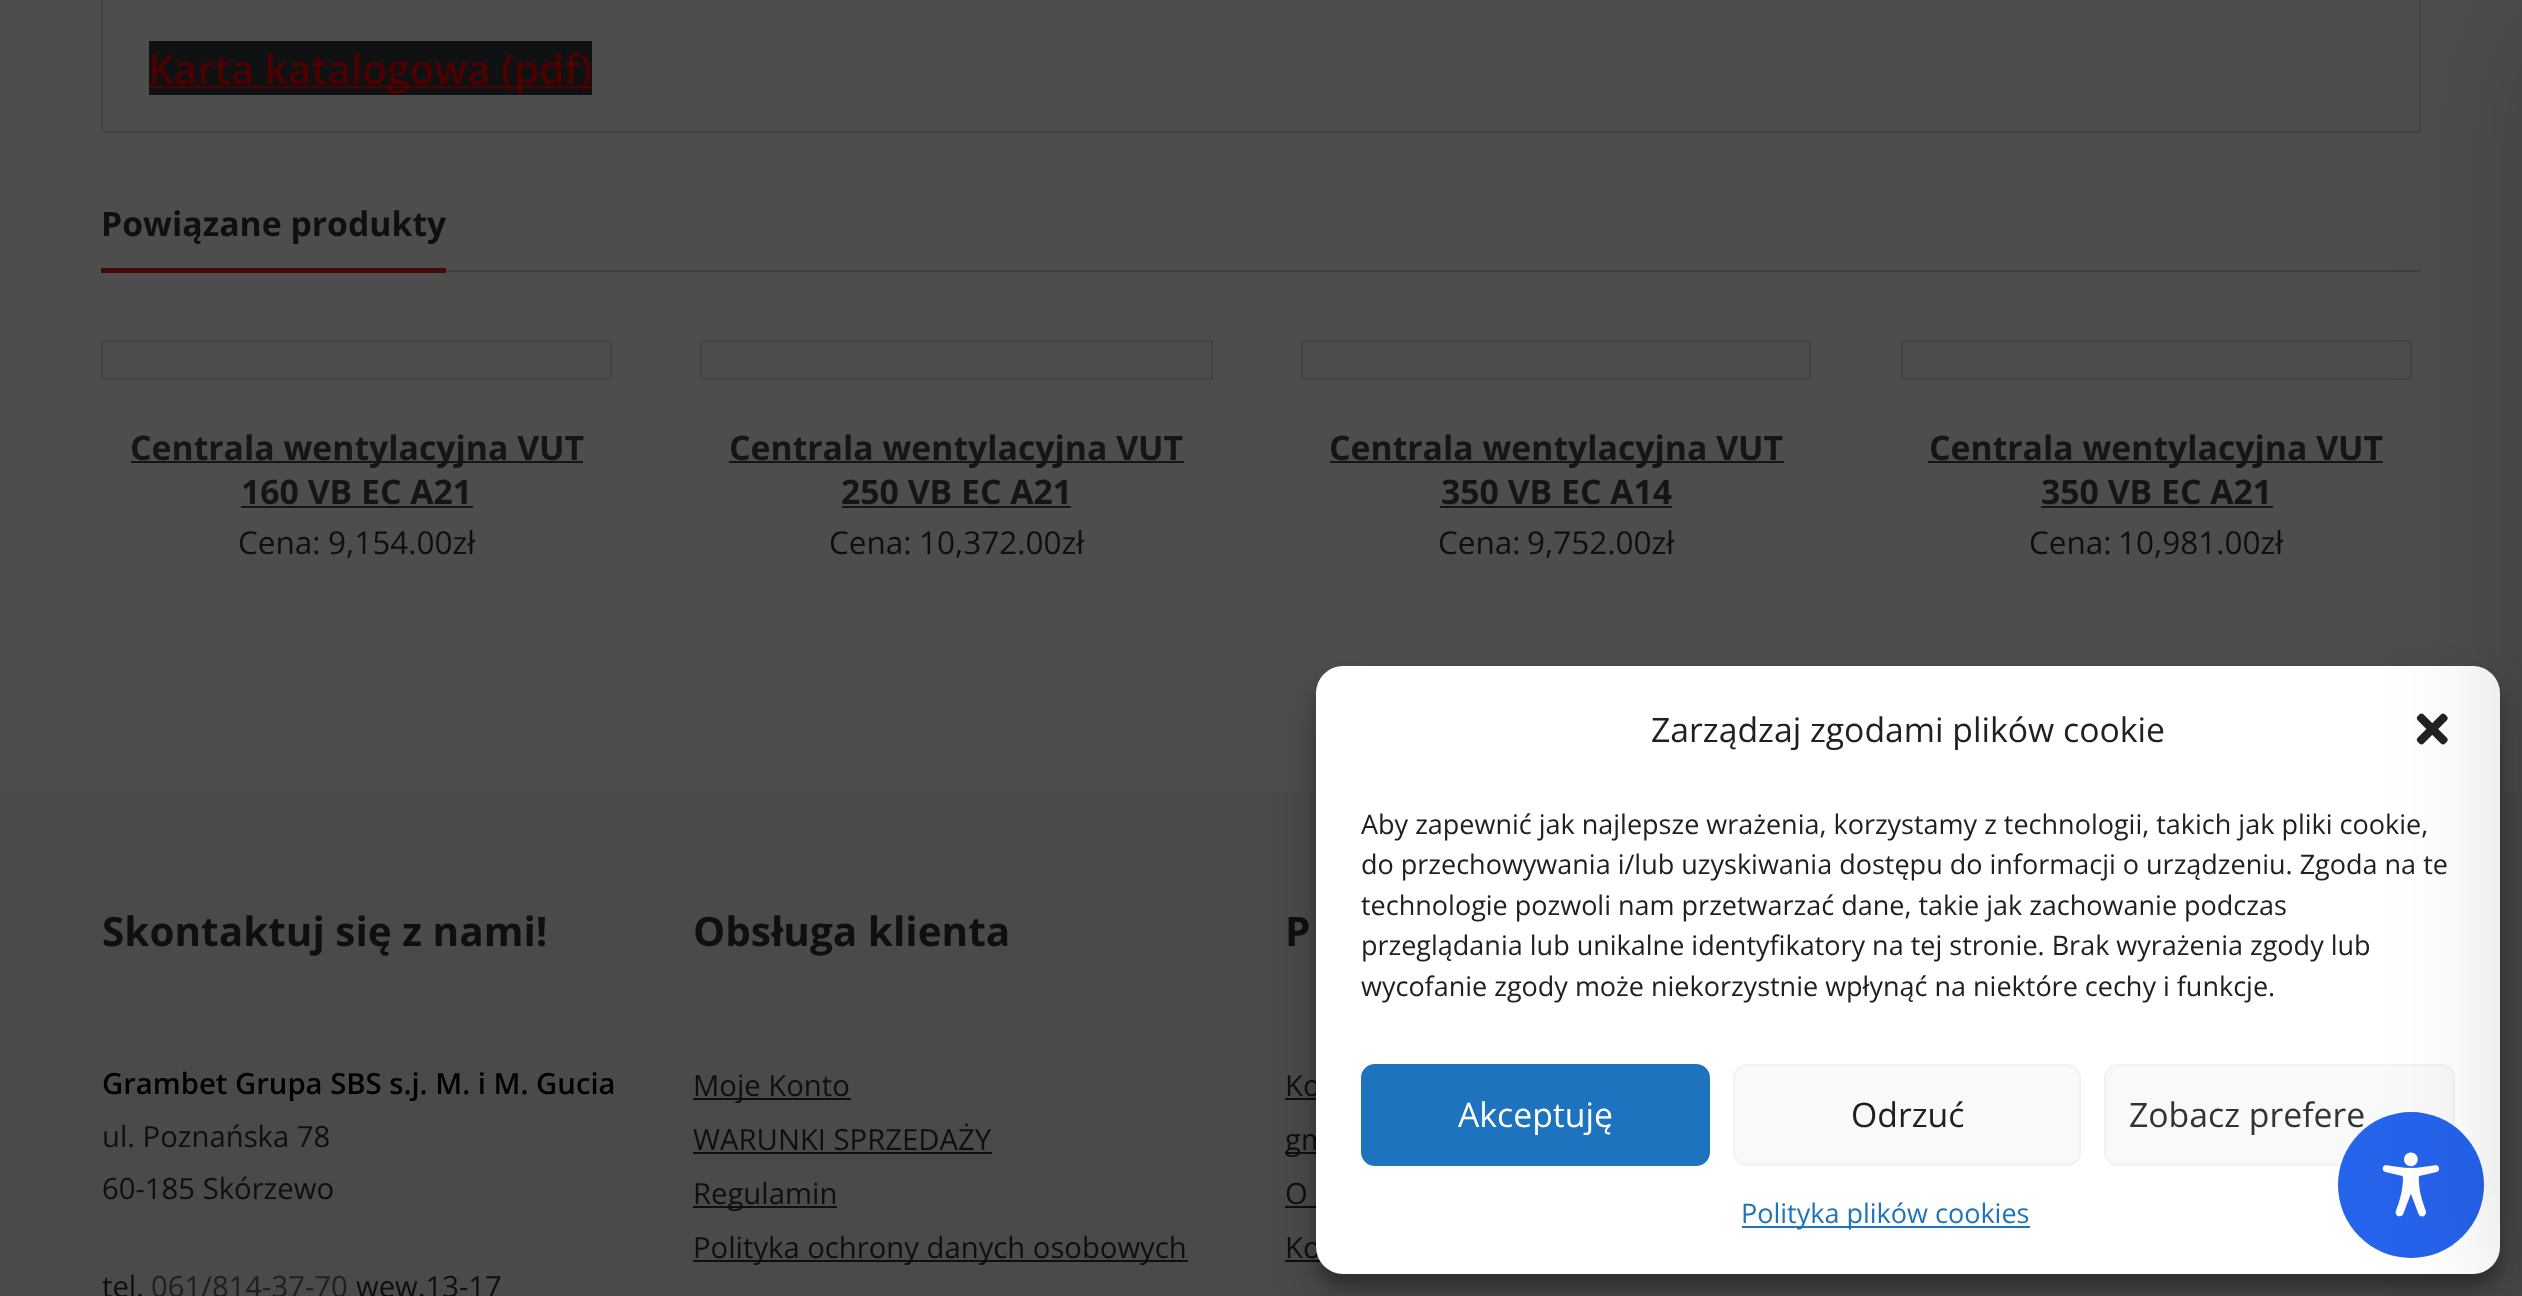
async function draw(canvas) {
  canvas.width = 2522;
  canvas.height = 1296;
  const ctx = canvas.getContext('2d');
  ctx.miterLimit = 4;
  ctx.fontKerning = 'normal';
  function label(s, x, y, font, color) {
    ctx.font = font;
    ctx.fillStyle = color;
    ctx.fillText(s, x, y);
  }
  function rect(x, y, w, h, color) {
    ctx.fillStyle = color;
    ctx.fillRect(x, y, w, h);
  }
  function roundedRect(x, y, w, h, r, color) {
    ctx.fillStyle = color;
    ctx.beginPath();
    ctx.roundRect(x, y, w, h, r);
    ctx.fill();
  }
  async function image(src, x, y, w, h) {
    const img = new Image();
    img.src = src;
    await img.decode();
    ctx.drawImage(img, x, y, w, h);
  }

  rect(0, 0, 2522, 1296, '#4d4d4d');
  ctx.strokeStyle = '#444';
  ctx.lineWidth = 2;
  ctx.strokeRect(102, -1, 2318, 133);
  rect(149, 41, 443, 54, '#0f1112');
  rect(149, 86, 443, 2, '#4d0000');
  label('Karta katalogowa (pdf)', 148, 84, '600 40.5px Open Sans', '#4d0000');
  rect(446, 270, 1975, 2, '#404040');
  rect(101, 268, 345, 5, '#44090b');
  label('Powiązane produkty', 101, 236, 'bold 33.75px Open Sans', '#0f0f0f');
  ctx.strokeRect(102, 341, 509, 38);
  rect(131, 461, 452, 2, '#151515');
  label('Centrala wentylacyjna VUT', 130, 460, 'bold 33.75px Open Sans', '#151515');
  label('160 VB EC A21', 241, 504, 'bold 33.75px Open Sans', '#151515');
  rect(241, 506, 232, 2, '#151515');
  label('Cena:', 238, 554, '31.5px Open Sans', '#0f0f0f');
  label('9,154.00zł', 328, 554, '31.5px Open Sans', '#0f0f0f');
  ctx.strokeRect(701, 341, 511, 38);
  rect(729, 461, 455, 2, '#151515');
  label('Centrala wentylacyjna VUT', 729, 460, 'bold 33.75px Open Sans', '#151515');
  label('250 VB EC A21', 841, 504, 'bold 33.75px Open Sans', '#151515');
  rect(842, 506, 229, 2, '#151515');
  label('Cena:', 829, 554, '31.5px Open Sans', '#0f0f0f');
  label('10,372.00zł', 919, 554, '31.5px Open Sans', '#0f0f0f');
  ctx.strokeRect(1302, 341, 508, 38);
  rect(1330, 461, 454, 2, '#151515');
  label('Centrala wentylacyjna VUT', 1329, 460, 'bold 33.75px Open Sans', '#151515');
  label('350 VB EC A14', 1441, 504, 'bold 33.75px Open Sans', '#151515');
  rect(1440, 506, 232, 2, '#151515');
  label('Cena:', 1438, 554, '31.5px Open Sans', '#0f0f0f');
  label('9,752.00zł', 1527, 554, '31.5px Open Sans', '#0f0f0f');
  ctx.strokeRect(1902, 341, 509, 38);
  rect(1928, 461, 455, 2, '#151515');
  label('Centrala wentylacyjna VUT', 1929, 460, 'bold 33.75px Open Sans', '#151515');
  label('350 VB EC A21', 2041, 504, 'bold 33.75px Open Sans', '#151515');
  rect(2041, 506, 232, 2, '#151515');
  label('Cena:', 2029, 554, '31.5px Open Sans', '#0f0f0f');
  label('10,981.00zł', 2118, 554, '31.5px Open Sans', '#0f0f0f');
  rect(0, 792, 2522, 504, '#4a4a4a');
  label('Skontaktuj się z nami!', 102, 946, 'bold 40.5px Open Sans', '#0f0f0f');
  label('Grambet Grupa SBS s.j. M. i M. Gucia', 102, 1094, '600 29.25px Open Sans', '#000');
  label('ul. Poznańska 78', 102, 1147, '29.25px Open Sans', '#0f0f0f');
  label('60-185 Skórzewo', 102, 1199, '29.25px Open Sans', '#0f0f0f');
  label('tel.', 102, 1297, '29.25px Open Sans', '#0f0f0f');
  label('061/814-37-70', 151, 1297, '29.25px Open Sans', '#212020');
  label('wew.13-17', 356, 1297, '29.25px Open Sans', '#0f0f0f');
  label('Obsługa klienta', 693, 946, 'bold 40.5px Open Sans', '#0f0f0f');
  rect(693, 1098, 158, 2, '#0f0f0f');
  label('Moje Konto', 693, 1096, '29.25px Open Sans', '#0f0f0f');
  label('WARUNKI SPRZEDAŻY', 693, 1150, '29.25px Open Sans', '#0f0f0f');
  rect(693, 1152, 299, 2, '#0f0f0f');
  rect(693, 1206, 144, 2, '#0f0f0f');
  label('Regulamin', 693, 1204, '29.25px Open Sans', '#0f0f0f');
  rect(693, 1260, 495, 2, '#0f0f0f');
  label('Polityka ochrony danych osobowych', 693, 1258, '29.25px Open Sans', '#0f0f0f');
  label('P', 1285, 946, 'bold 40.5px Open Sans', '#0f0f0f');
  label('Ko', 1285, 1096, '29.25px Open Sans', '#0f0f0f');
  rect(1285, 1098, 31, 2, '#0f0f0f');
  rect(1285, 1152, 31, 2, '#0f0f0f');
  label('gm', 1285, 1150, '29.25px Open Sans', '#0f0f0f');
  label('O', 1285, 1204, '29.25px Open Sans', '#0f0f0f');
  rect(1285, 1206, 31, 2, '#0f0f0f');
  label('Ko', 1285, 1258, '29.25px Open Sans', '#0f0f0f');
  rect(1285, 1260, 36, 2, '#0f0f0f');
  ctx.fillStyle = '#0000003b';
  ctx.filter = 'blur(7px)';
  ctx.beginPath();
  ctx.roundRect(1316, 680, 1184, 607, 27);
  ctx.fill();
  ctx.filter = 'none';
  ctx.fillStyle = '#00000030';
  ctx.filter = 'blur(22.5px)';
  ctx.beginPath();
  ctx.roundRect(1316, 689, 1184, 607, 27);
  ctx.fill();
  ctx.filter = 'none';
  roundedRect(1316, 666, 1184, 608, 27, '#fff');
  await image('assets/img1.png', 2416, 713, 32, 32);
  ctx.fillStyle = '#f9f9f9';
  ctx.beginPath();
  ctx.roundRect(2105, 1065, 349, 100, 13);
  ctx.fill();
  ctx.strokeStyle = '#f2f2f2';
  ctx.stroke();
  label('Zobacz prefere', 2129, 1127, '33.75px Open Sans', '#333');
  ctx.fillStyle = '#2563eb';
  ctx.beginPath();
  ctx.arc(2411, 1185, 73, 0, 2 * Math.PI);
  ctx.fill();
  await image('assets/img2.png', 2382, 1152, 58, 65);
  ctx.fillStyle = '#00000033';
  ctx.filter = 'blur(67.5px)';
  ctx.beginPath();
  ctx.rect(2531, 23, 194, 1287);
  ctx.fill();
  ctx.filter = 'none';
  label('Zarządzaj zgodami plików cookie', 1651, 742, '33.75px Open Sans', '#212020');
  label('Aby zapewnić jak najlepsze wrażenia, korzystamy z technologii, takich jak pliki cookie,', 1361, 834, '27px Open Sans', '#212020');
  label('do przechowywania i/lub uzyskiwania dostępu do informacji o urządzeniu. Zgoda na te', 1361, 874, '27px Open Sans', '#212020');
  label('technologie pozwoli nam przetwarzać dane, takie jak zachowanie podczas', 1361, 915, '27px Open Sans', '#212020');
  label('przeglądania lub unikalne identyfikatory na tej stronie. Brak wyrażenia zgody lub', 1361, 955, '27px Open Sans', '#212020');
  label('wycofanie zgody może niekorzystnie wpłynąć na niektóre cechy i funkcje.', 1361, 996, '27px Open Sans', '#212020');
  ctx.fillStyle = '#1e73be';
  ctx.beginPath();
  ctx.roundRect(1362, 1065, 347, 100, 13);
  ctx.fill();
  ctx.strokeStyle = '#1e73be';
  ctx.stroke();
  label('Akceptuję', 1458, 1127, '33.75px Open Sans', '#fff');
  ctx.fillStyle = '#f9f9f9';
  ctx.beginPath();
  ctx.roundRect(1734, 1065, 346, 100, 13);
  ctx.fill();
  ctx.strokeStyle = '#f2f2f2';
  ctx.stroke();
  label('Odrzuć', 1851, 1127, '33.75px Open Sans', '#212020');
  rect(1742, 1226, 288, 2, '#1e73be');
  label('Polityka plików cookies', 1741, 1223, '27px Open Sans', '#1e73be');
}

draw(document.querySelector('canvas'));
